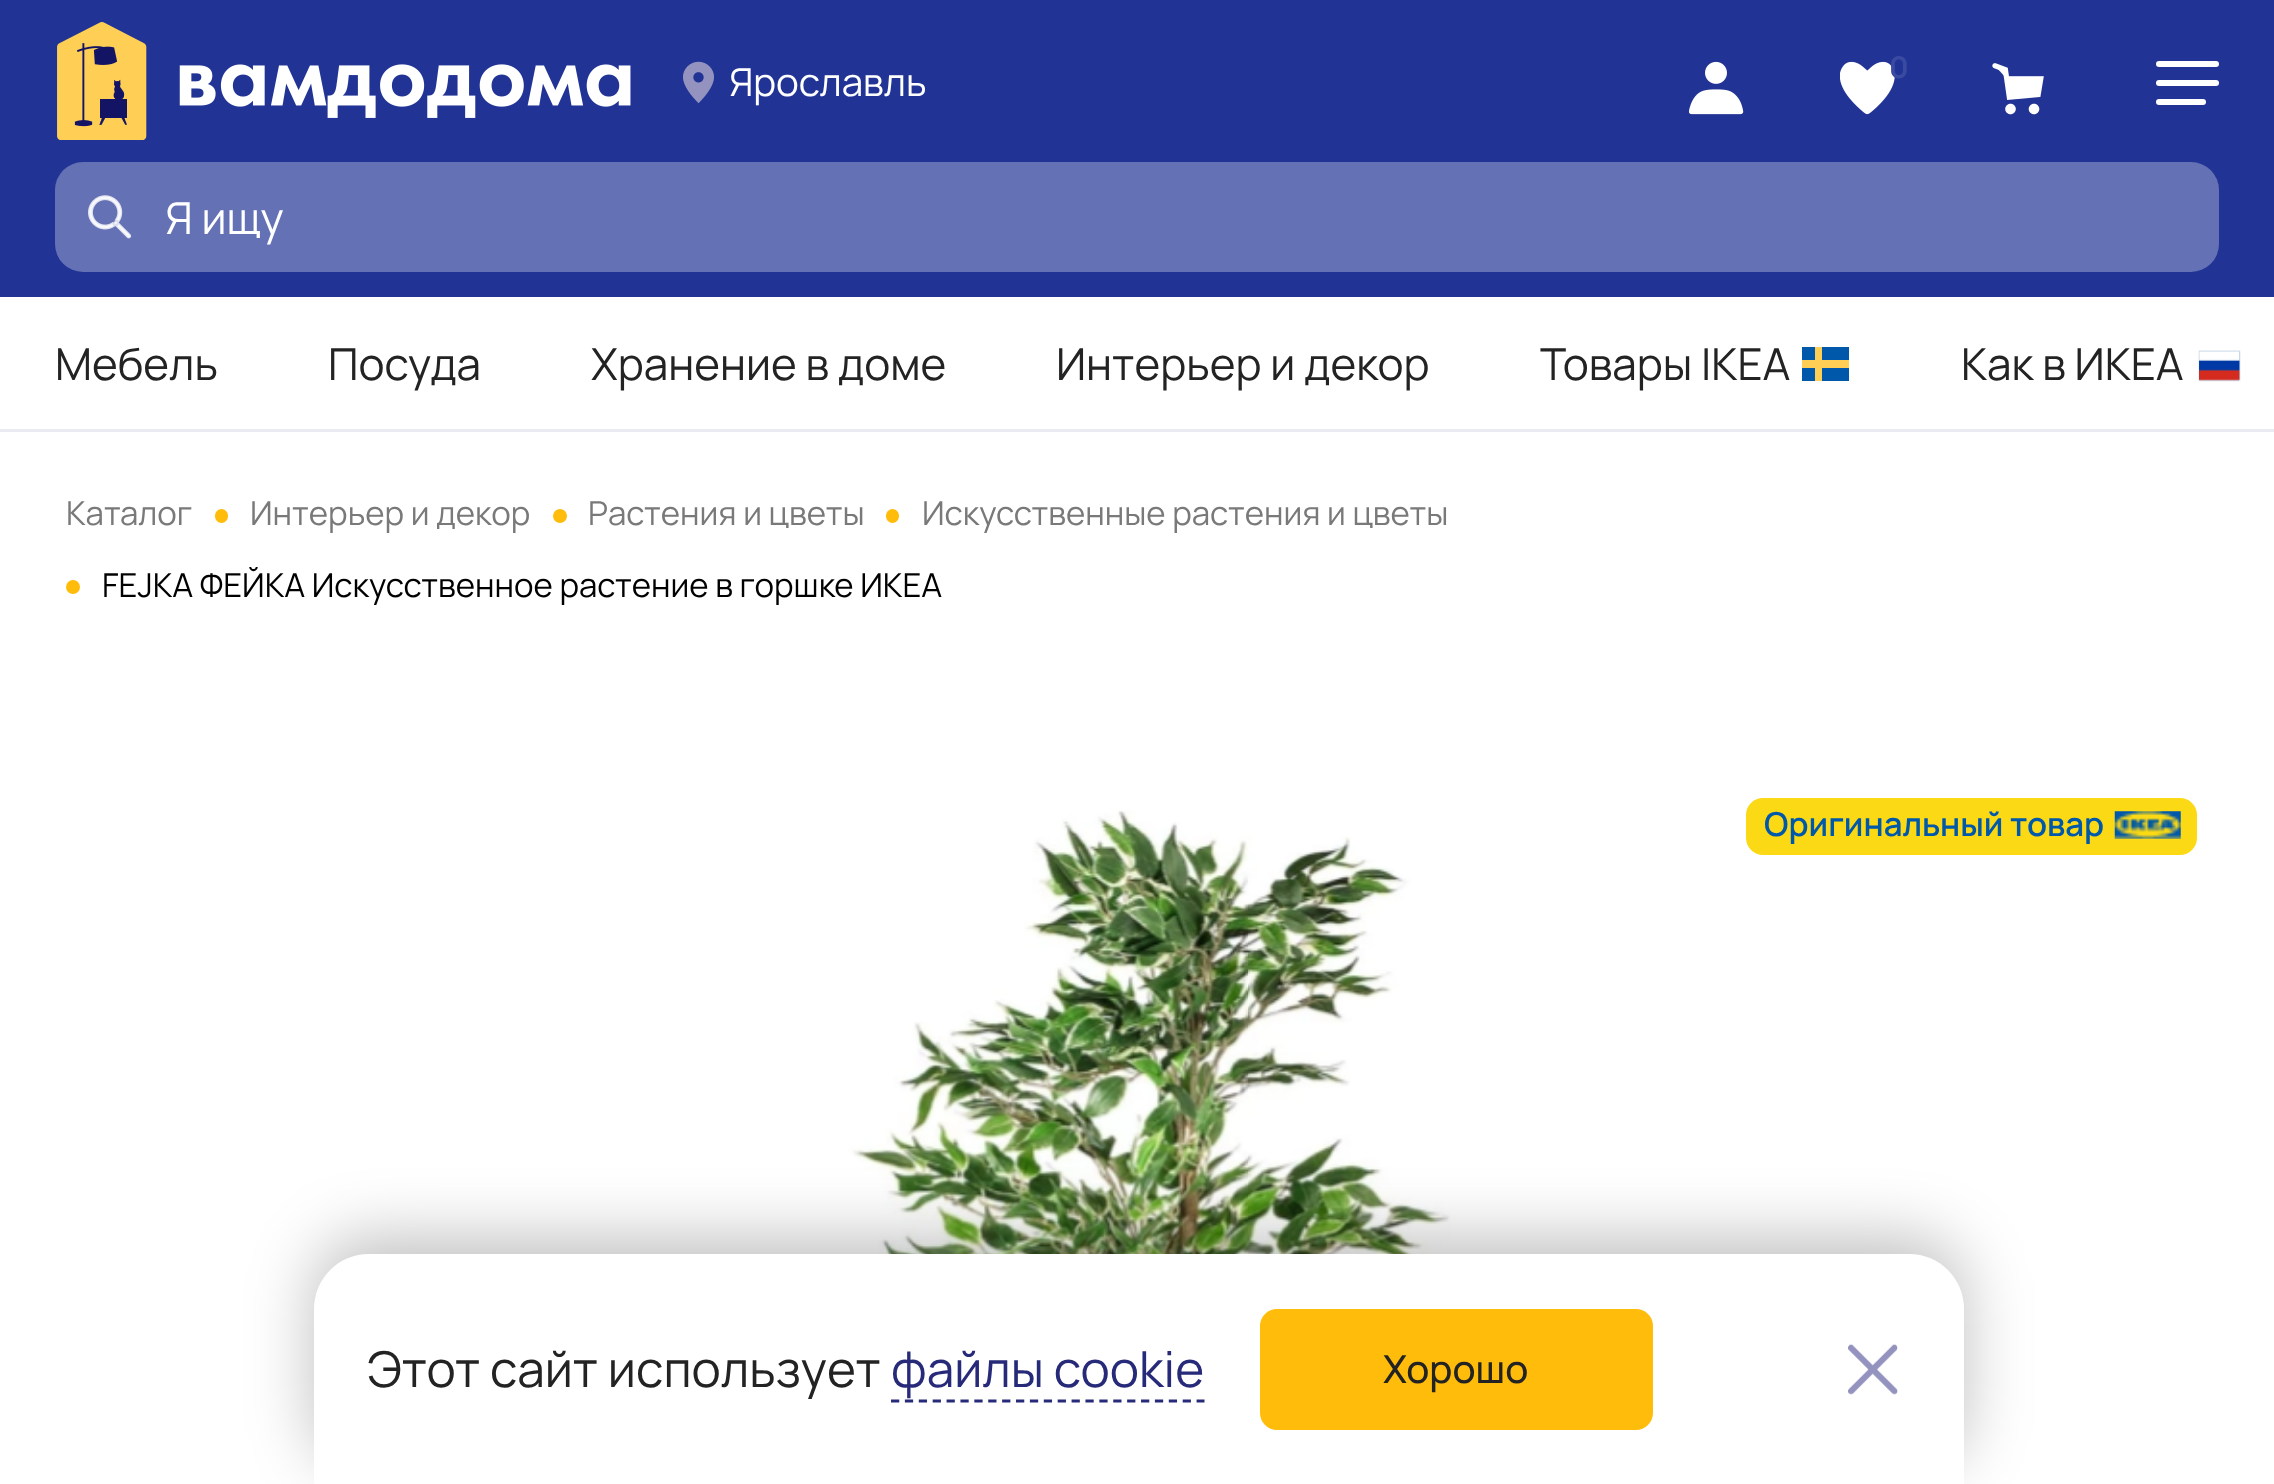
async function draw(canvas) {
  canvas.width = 2274;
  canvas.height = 1484;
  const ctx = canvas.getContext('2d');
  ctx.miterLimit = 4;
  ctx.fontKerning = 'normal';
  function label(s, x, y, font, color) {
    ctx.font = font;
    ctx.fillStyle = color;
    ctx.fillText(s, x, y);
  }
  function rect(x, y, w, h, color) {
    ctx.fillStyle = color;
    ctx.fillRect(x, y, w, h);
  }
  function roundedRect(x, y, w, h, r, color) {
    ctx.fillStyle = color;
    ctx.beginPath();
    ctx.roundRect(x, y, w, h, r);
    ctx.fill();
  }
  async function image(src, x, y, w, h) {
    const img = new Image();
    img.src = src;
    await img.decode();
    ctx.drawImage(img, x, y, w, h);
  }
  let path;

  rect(0, 0, 2274, 1484, '#fff');
  rect(0, 0, 2274, 297, '#213495');
  await image('assets/img1.png', 57, 22, 574, 118);
  await image('assets/img2.png', 683, 61, 31, 43);
  label('Ярославль', 729, 96, '38.5px Manrope', '#fff');
  await image('assets/img3.png', 1689, 61, 55, 54);
  await image('assets/img4.png', 1840, 61, 55, 54);
  label('0', 1889, 78, 'bold 30px Manrope', '#394aa0');
  await image('assets/img5.png', 1992, 63, 52, 52);
  roundedRect(2156, 61, 63, 6, 3, '#fff');
  roundedRect(2156, 80, 63, 6, 3, '#fff');
  roundedRect(2156, 99, 50, 6, 3, '#fff');
  roundedRect(55, 162, 2164, 110, 28, '#6471b4');
  await image('assets/img6.png', 88, 195, 44, 44);
  label('Я ищу', 165, 234, '44px Manrope', '#fff');
  rect(0, 429, 2274, 3, '#e9eaf2');
  label('Мебель', 55, 380, '44px Manrope', '#232323');
  label('Посуда', 328, 380, '44px Manrope', '#232323');
  label('Хранение в доме', 591, 380, '44px Manrope', '#232323');
  label('Интерьер и декор', 1056, 380, '44px Manrope', '#232323');
  label('Товары IKEA', 1540, 380, '44px Manrope', '#232323');
  rect(1802, 347, 47, 34, '#0058ab');
  rect(1815, 347, 7, 34, '#ffcf55');
  rect(1802, 360, 47, 8, '#ffcf55');
  label('Как в ИКЕА', 1961, 380, '44px Manrope', '#232323');
  await image('assets/img7.png', 2198, 350, 43, 32);
  label('Каталог', 66, 525, '33px Manrope', '#797979');
  roundedRect(215, 509, 13, 14, 6.5, '#ffbc0a');
  label('Интерьер и декор', 250, 525, '33px Manrope', '#797979');
  ctx.fillStyle = '#ffbc0a';
  ctx.beginPath();
  ctx.arc(560, 516, 7, 0, 2 * Math.PI);
  ctx.fill();
  label('Растения и цветы', 588, 525, '33px Manrope', '#797979');
  roundedRect(886, 509, 13, 14, 6.5, '#ffbc0a');
  label('Искусственные растения и цветы', 922, 525, '33px Manrope', '#797979');
  ctx.fillStyle = '#ffbc0a';
  ctx.beginPath();
  ctx.arc(73, 587, 7, 0, 2 * Math.PI);
  ctx.fill();
  label('FEJKA ФЕЙКА Искусственное растение в горшке ИКЕА', 102, 597, '33px Manrope', '#000');
  await image('assets/img8.png', 769, 810, 737, 444);
  roundedRect(1746, 798, 451, 57, 17, '#fbd914');
  label('Оригинальный товар', 1764, 836, '600 33px Manrope', '#0058ab');
  await image('assets/img9.png', 2114, 811, 67, 28);
  ctx.fillStyle = '#00000040';
  ctx.filter = 'blur(33px)';
  ctx.beginPath();
  ctx.roundRect(314, 1238, 1650, 231, 55);
  ctx.fill();
  ctx.filter = 'none';
  ctx.fillStyle = '#fff';
  path = new Path2D('M369 1254H1909C1939.5 1254 1964 1278.5 1964 1309V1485H314V1309C314 1278.5 338.5 1254 369 1254Z');
  ctx.fill(path);
  label('Этот сайт использует', 367, 1387, '49.5px Manrope', '#232323');
  label('файлы cookie', 891, 1387, '49.5px Manrope', '#272a79');
  path = new Path2D('M891 1401H1204.5');
  ctx.strokeStyle = '#272a79';
  ctx.lineWidth = 2.8;
  ctx.setLineDash([8.25, 5.64]);
  ctx.stroke(path);
  roundedRect(1260, 1309, 393, 121, 17, '#ffbc0a');
  label('Хорошо', 1383, 1383, '500 38.5px Manrope', '#232323');
  await image('assets/img10.png', 1848, 1344, 50, 51);
}

draw(document.querySelector('canvas'));
